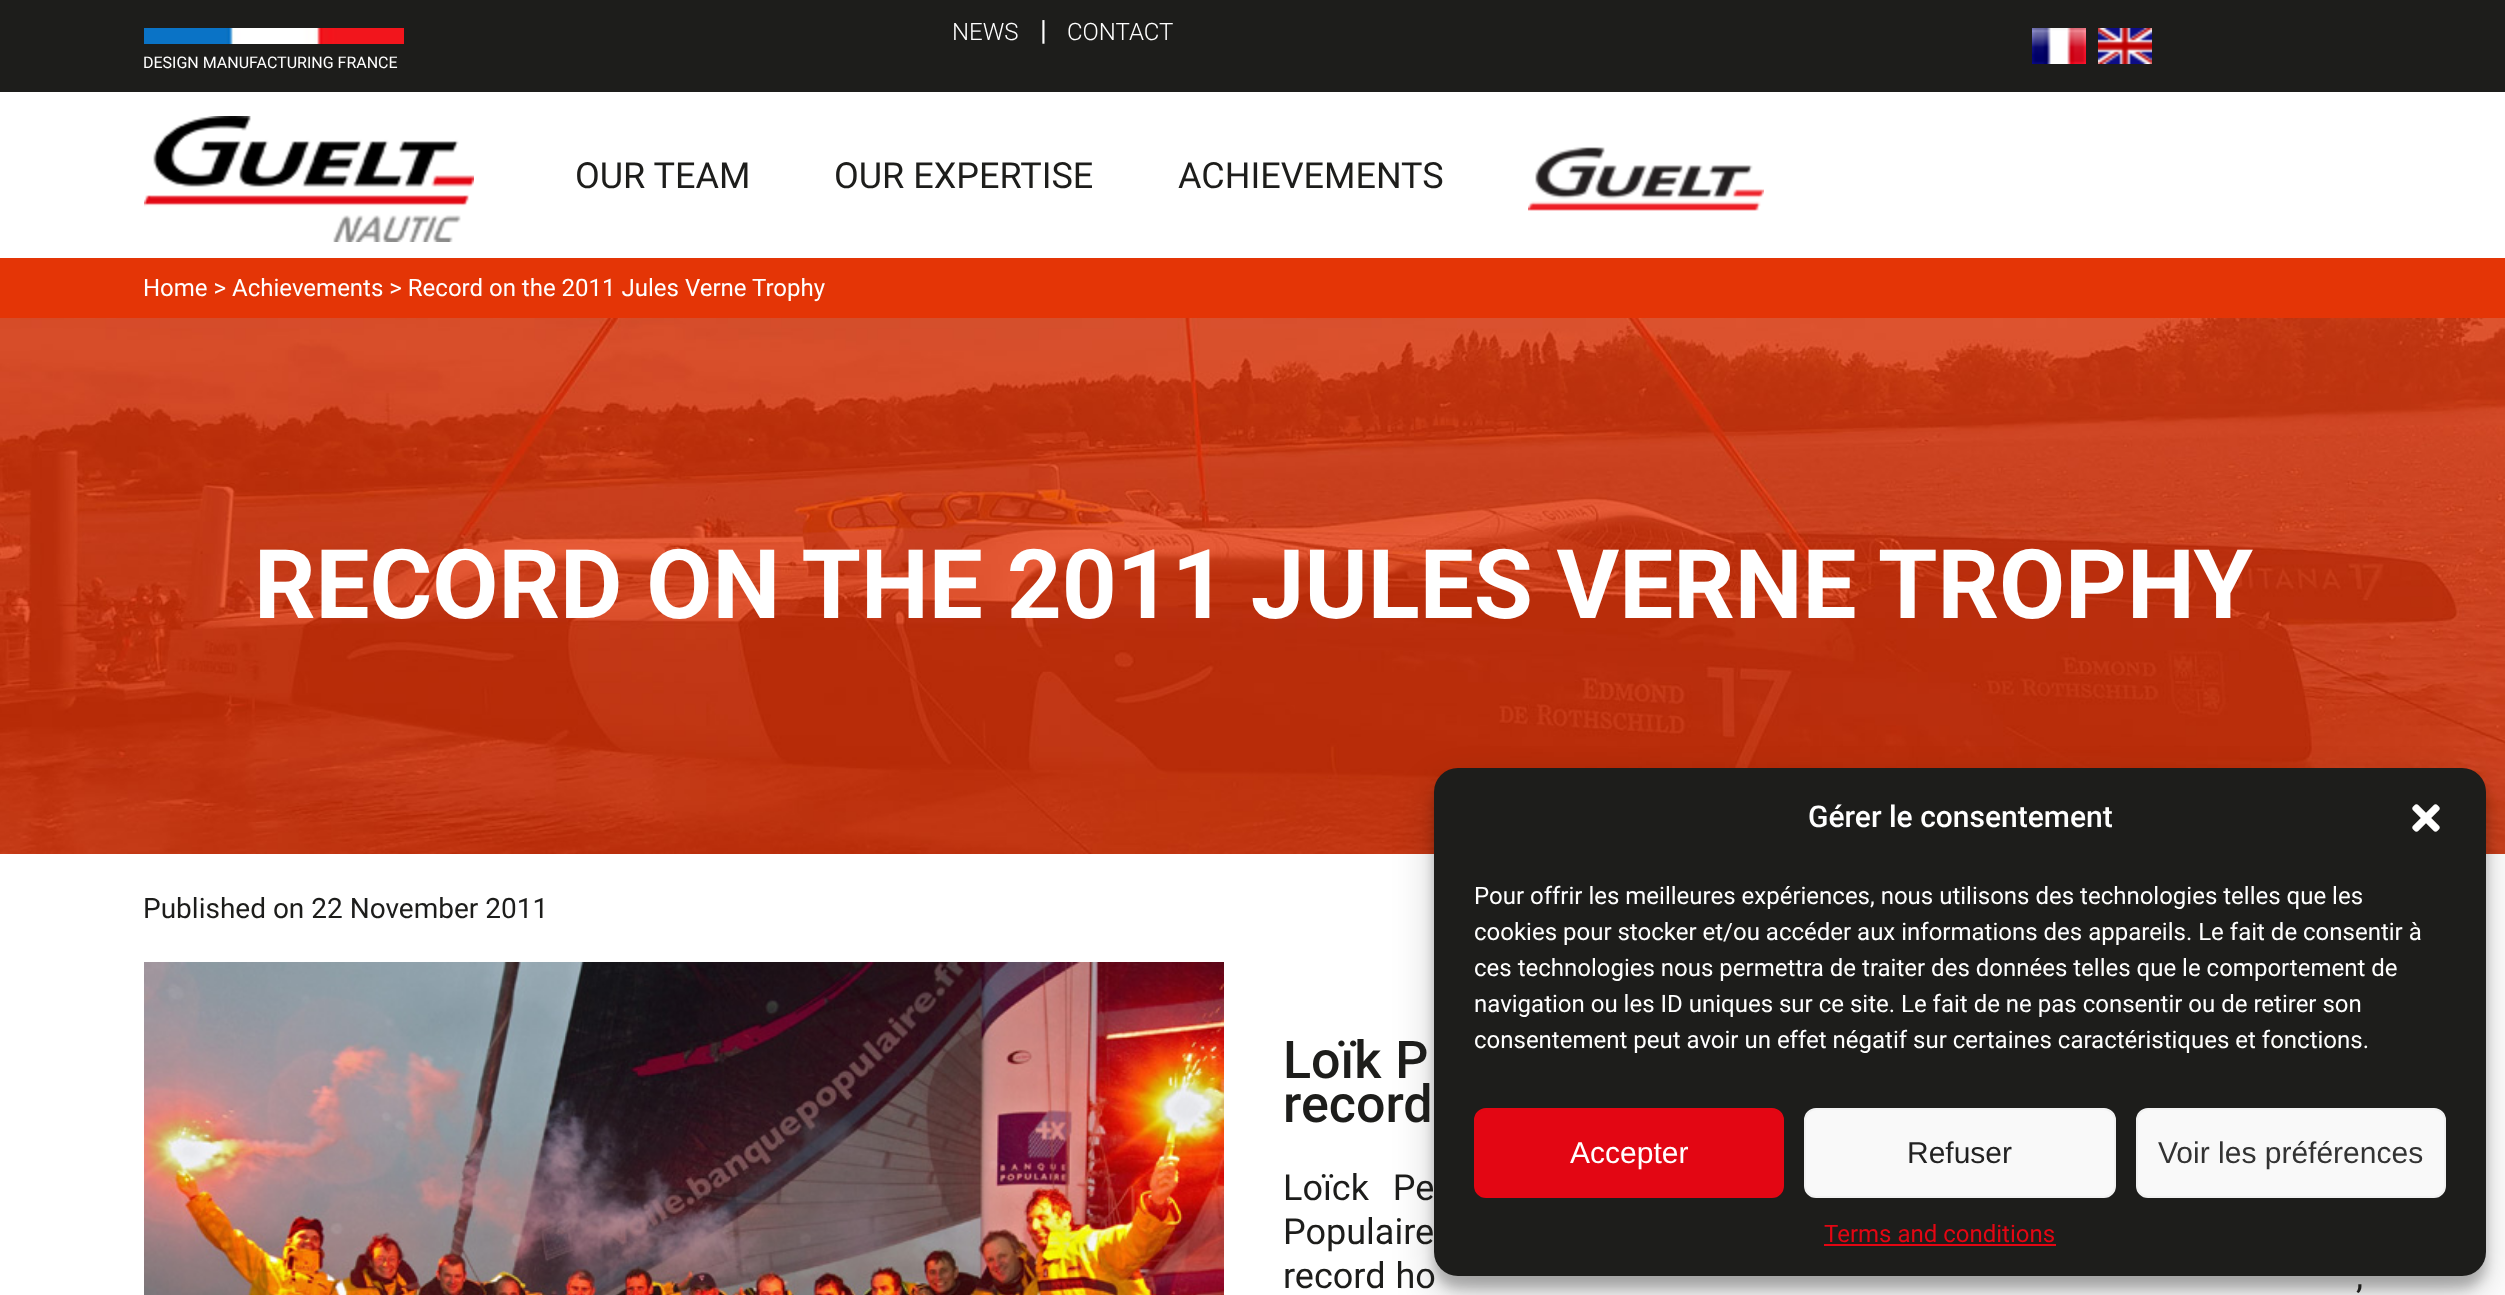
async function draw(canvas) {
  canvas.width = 2505;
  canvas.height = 1295;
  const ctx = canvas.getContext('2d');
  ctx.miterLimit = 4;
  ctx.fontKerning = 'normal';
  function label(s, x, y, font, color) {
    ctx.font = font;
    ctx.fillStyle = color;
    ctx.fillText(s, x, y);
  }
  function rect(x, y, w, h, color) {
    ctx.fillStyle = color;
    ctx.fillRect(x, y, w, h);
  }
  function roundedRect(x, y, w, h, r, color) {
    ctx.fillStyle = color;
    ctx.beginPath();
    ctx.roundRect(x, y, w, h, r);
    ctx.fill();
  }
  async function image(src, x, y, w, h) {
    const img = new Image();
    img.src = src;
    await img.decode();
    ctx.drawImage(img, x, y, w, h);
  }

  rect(0, 0, 2505, 1295, '#fff');
  rect(0, 0, 2505, 92, '#1d1d1b');
  await image('assets/img1.png', 144, 28, 260, 16);
  label('DESIGN MANUFACTURING FRANCE', 143, 68, '16px Roboto', '#fff');
  label('NEWS', 952, 40, '300 24px Roboto', '#fff');
  label('|', 1040, 40, '28px Roboto', '#fff');
  label('CONTACT', 1067, 40, '300 24px Roboto', '#fff');
  await image('assets/img2.png', 2032, 28, 54, 36);
  await image('assets/img3.png', 2098, 28, 54, 36);
  await image('assets/img4.png', 144, 116, 330, 126);
  label('OUR TEAM', 575, 188, '36px Roboto', '#1d1d1b');
  label('OUR EXPERTISE', 834, 188, '36px Roboto', '#1d1d1b');
  label('ACHIEVEMENTS', 1178, 188, '36px Roboto', '#1d1d1b');
  await image('assets/img5.png', 1528, 147, 236, 64);
  rect(0, 258, 2505, 60, '#e43506');
  label('Home > Achievements > Record on the 2011 Jules Verne Trophy', 143, 296, '24px Roboto', '#fff');
  await image('assets/img6.png', 0, 318, 2505, 536);
  label('RECORD ON THE 2011 JULES VERNE TROPHY', 254, 618, 'bold 96px Roboto', '#fff');
  ctx.fillStyle = '#0000003b';
  ctx.filter = 'blur(6px)';
  ctx.beginPath();
  ctx.roundRect(1434, 780, 1052, 508, 24);
  ctx.fill();
  ctx.filter = 'none';
  ctx.fillStyle = '#00000030';
  ctx.filter = 'blur(20px)';
  ctx.beginPath();
  ctx.roundRect(1434, 788, 1052, 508, 24);
  ctx.fill();
  ctx.filter = 'none';
  roundedRect(1434, 768, 1052, 508, 24, '#1d1d1b');
  label('Gérer le consentement', 1808, 827, '500 30px Roboto', '#fff');
  await image('assets/img7.png', 2412, 804, 28, 28);
  label('Pour offrir les meilleures expériences, nous utilisons des technologies telles que les', 1474, 904, '24px Roboto', '#fff');
  label('cookies pour stocker et/ou accéder aux informations des appareils. Le fait de consentir à', 1474, 940, '24px Roboto', '#fff');
  label('ces technologies nous permettra de traiter des données telles que le comportement de', 1474, 976, '24px Roboto', '#fff');
  label('navigation ou les ID uniques sur ce site. Le fait de ne pas consentir ou de retirer son', 1474, 1012, '24px Roboto', '#fff');
  label('consentement peut avoir un effet négatif sur certaines caractéristiques et fonctions.', 1474, 1048, '24px Roboto', '#fff');
  ctx.fillStyle = '#e30613';
  ctx.beginPath();
  ctx.roundRect(1475, 1109, 308, 88, 11);
  ctx.fill();
  ctx.strokeStyle = '#e30613';
  ctx.lineWidth = 2;
  ctx.stroke();
  label('Accepter', 1570, 1163, '30px Liberation Sans', '#fff');
  ctx.fillStyle = '#f9f9f9';
  ctx.beginPath();
  ctx.roundRect(1805, 1109, 310, 88, 11);
  ctx.fill();
  ctx.strokeStyle = '#f2f2f2';
  ctx.stroke();
  label('Refuser', 1907, 1163, '30px Liberation Sans', '#222');
  ctx.fillStyle = '#f9f9f9';
  ctx.beginPath();
  ctx.roundRect(2137, 1109, 308, 88, 11);
  ctx.fill();
  ctx.stroke();
  label('Voir les préférences', 2158, 1163, '30px Liberation Sans', '#333');
  label('Terms and conditions', 1824, 1242, '24px Roboto', '#e30613');
  rect(1824, 1244, 232, 2, '#e30613');
  label('Published on 22 November 2011', 143, 918, '28px Roboto', '#1d1d1b');
  await image('assets/img8.png', 144, 962, 1080, 333);
  ctx.wordSpacing = '1px';
  label('Loïk P', 1283, 1078, '500 52px Roboto', '#1d1d1b');
  ctx.wordSpacing = '0px';
  label('record', 1283, 1122, '500 52px Roboto', '#1d1d1b');
  ctx.wordSpacing = '15px';
  label('Loïck Pe', 1283, 1200, '36px Roboto', '#1d1d1b');
  ctx.wordSpacing = '11px';
  label('Populaire', 1283, 1244, '36px Roboto', '#1d1d1b');
  ctx.wordSpacing = '1px';
  label('record ho', 1283, 1288, '36px Roboto', '#1d1d1b');
  label(',', 2356, 1288, '36px Roboto', '#1d1d1b');
}

draw(document.querySelector('canvas'));
